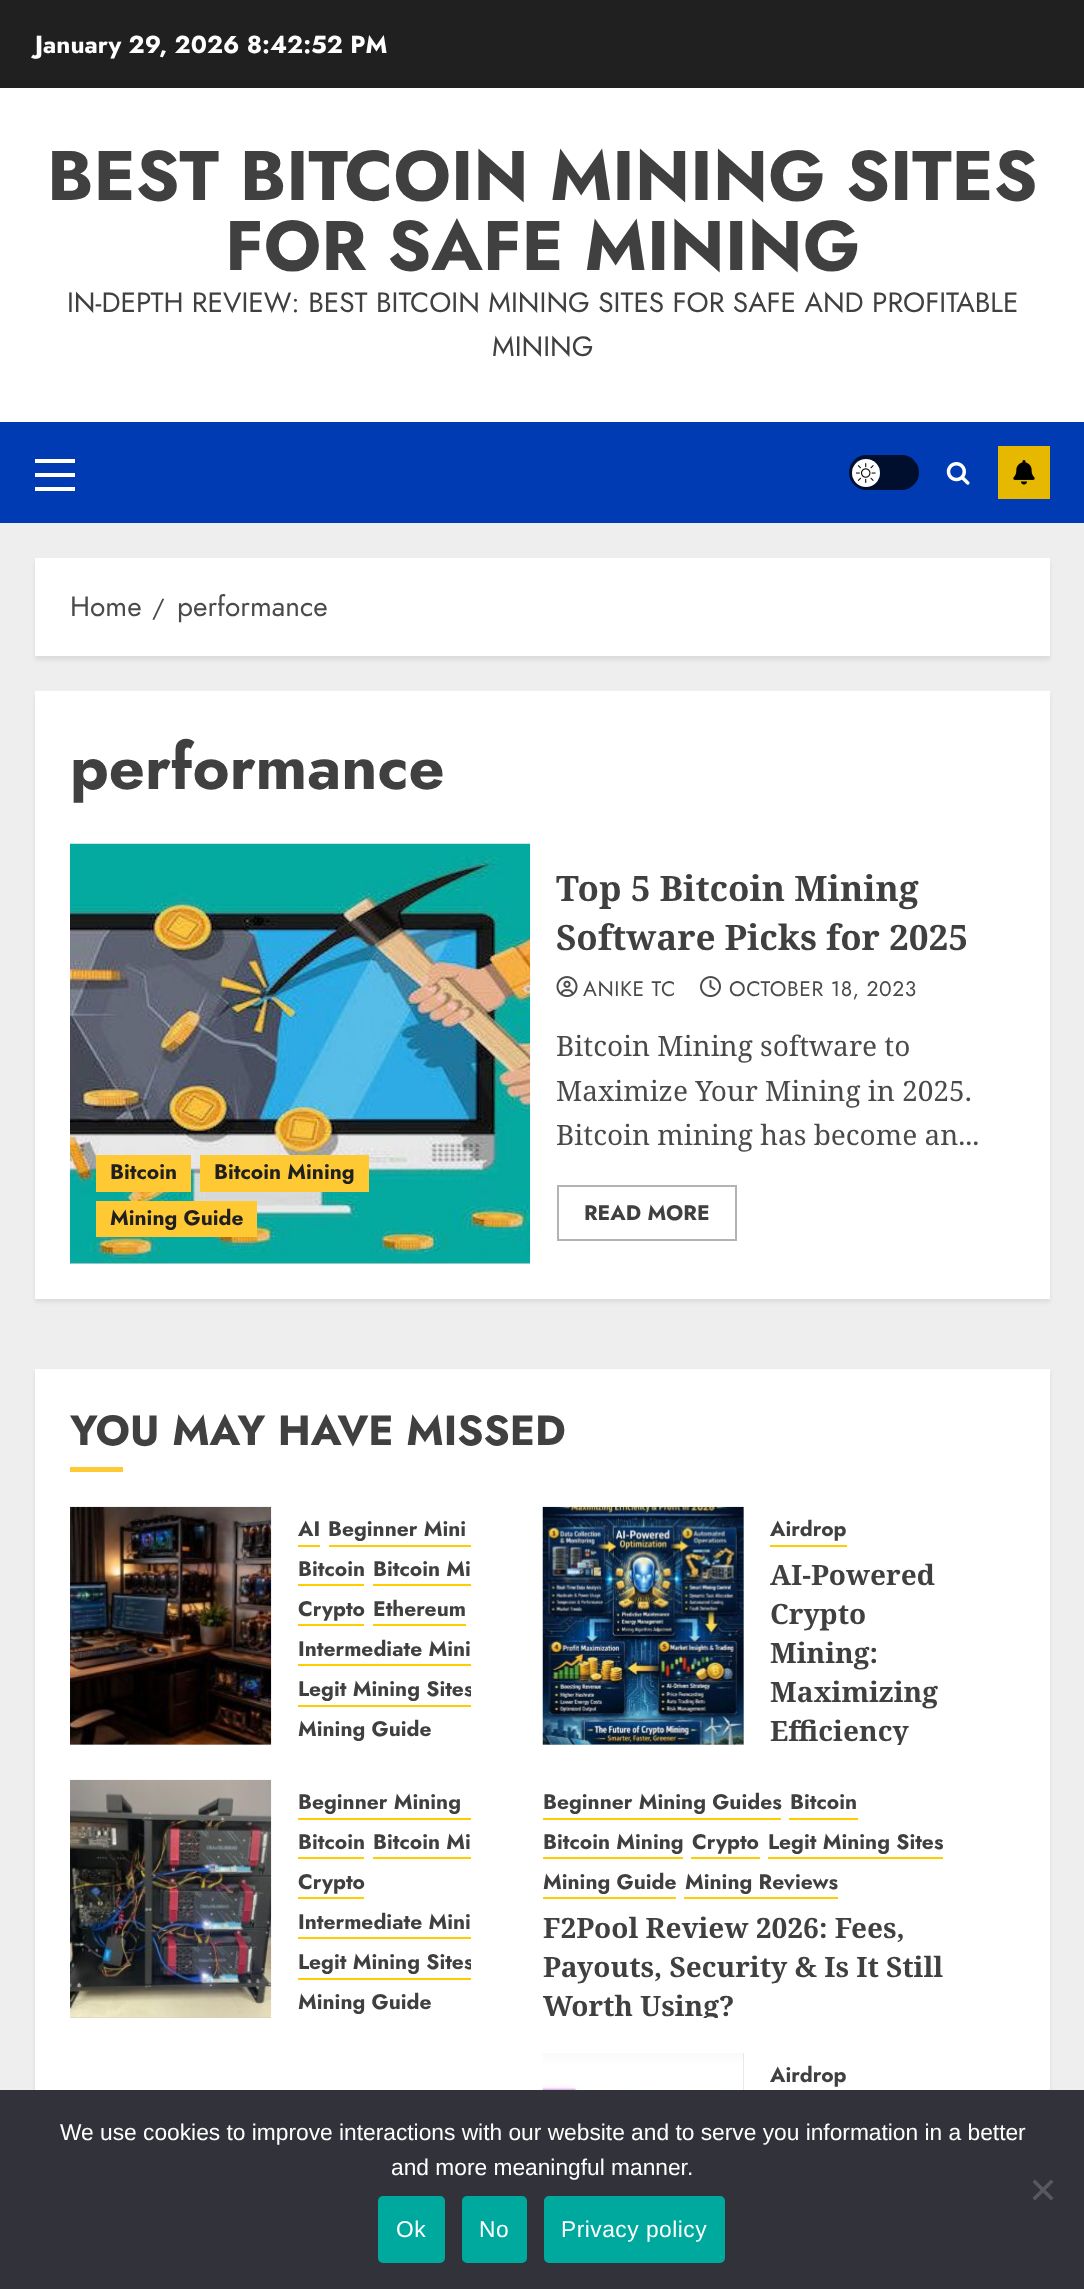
async function draw(canvas) {
  canvas.width = 1084;
  canvas.height = 2289;
  const ctx = canvas.getContext('2d');
  ctx.miterLimit = 4;
  ctx.fontKerning = 'normal';
  function label(s, x, y, font, color) {
    ctx.font = font;
    ctx.fillStyle = color;
    ctx.fillText(s, x, y);
  }
  function rect(x, y, w, h, color) {
    ctx.fillStyle = color;
    ctx.fillRect(x, y, w, h);
  }
  function roundedRect(x, y, w, h, r, color) {
    ctx.fillStyle = color;
    ctx.beginPath();
    ctx.roundRect(x, y, w, h, r);
    ctx.fill();
  }
  async function image(src, x, y, w, h) {
    const img = new Image();
    img.src = src;
    await img.decode();
    ctx.drawImage(img, x, y, w, h);
  }
  let path;

  rect(0, 0, 1084, 2289, '#eee');
  rect(0, 0, 1084, 88, '#202020');
  label('January 29, 2026 8:42:52 PM', 35, 53, 'bold 24.5px Jost', '#fff');
  rect(0, 88, 1084, 334, '#fff');
  label('BEST BITCOIN MINING SITES', 47, 200, 'bold 70px Jost', '#404040');
  label('FOR SAFE MINING', 225, 270, 'bold 70px Jost', '#404040');
  label('IN-DEPTH REVIEW: BEST BITCOIN MINING SITES FOR SAFE AND PROFITABLE', 67, 312, '28px Jost', '#404040');
  label('MINING', 492, 356, '28px Jost', '#404040');
  rect(0, 422, 1084, 101, '#003bb3');
  rect(35, 473, 40, 4, '#fff');
  rect(35, 459, 40, 4, '#fff');
  rect(35, 487, 40, 4, '#fff');
  roundedRect(849, 455, 70, 35, 17.5, '#000f2d');
  ctx.fillStyle = '#fff';
  ctx.beginPath();
  ctx.arc(866, 473, 14, 0, 2 * Math.PI);
  ctx.fill();
  await image('assets/img1.png', 856, 463, 20, 20);
  await image('assets/img2.png', 946, 462, 24, 23);
  rect(998, 446, 52, 53, '#e6b800');
  await image('assets/img3.png', 1013, 460, 22, 25);
  ctx.fillStyle = '#00000014';
  ctx.filter = 'blur(2px)';
  ctx.beginPath();
  ctx.rect(35, 562, 1015, 98);
  ctx.fill();
  ctx.filter = 'none';
  rect(35, 558, 1015, 98, '#fff');
  label('Home', 70, 616, '28px Jost', '#4a4a4a');
  label('/', 152, 616, '24.5px Jost', '#4a4a4a');
  label('performance', 177, 616, '28px Jost', '#4a4a4a');
  ctx.fillStyle = '#00000014';
  ctx.filter = 'blur(2px)';
  ctx.beginPath();
  ctx.rect(35, 695, 1015, 607);
  ctx.fill();
  ctx.filter = 'none';
  rect(35, 691, 1015, 608, '#fff');
  label('performance', 70, 789, 'bold 63px Jost', '#404040');
  rect(70, 1263, 460, 1, '#ccc');
  await image('assets/img4.png', 70, 843, 461, 421);
  rect(96, 1155, 95, 37, '#ffc934');
  label('Bitcoin', 110, 1179, 'bold 21px Jost', '#202020');
  rect(200, 1155, 169, 37, '#ffc934');
  label('Bitcoin Mining', 214, 1179, 'bold 21px Jost', '#202020');
  rect(96, 1201, 161, 36, '#ffc934');
  label('Mining Guide', 110, 1225, 'bold 21px Jost', '#202020');
  label('Top 5 Bitcoin Mining', 556, 901, 'bold 35px Noto Serif', '#404040');
  label('Software Picks for 2025', 556, 950, 'bold 35px Noto Serif', '#404040');
  await image('assets/img5.png', 556, 976, 22, 21);
  ctx.letterSpacing = '0.6px';
  label('ANIKE TC', 583, 996, '21px Jost', '#4a4a4a');
  await image('assets/img6.png', 700, 976, 21, 22);
  label('OCTOBER 18, 2023', 729, 996, '21px Jost', '#4a4a4a');
  ctx.letterSpacing = '0px';
  label('Bitcoin Mining software to', 556, 1056, '28px Noto Serif', '#4a4a4a');
  label('Maximize Your Mining in 2025.', 556, 1101, '28px Noto Serif', '#4a4a4a');
  label('Bitcoin mining has become an...', 556, 1145, '28px Noto Serif', '#4a4a4a');
  ctx.strokeStyle = '#b3b3b3';
  ctx.lineWidth = 2;
  ctx.strokeRect(558, 1186, 178, 54);
  label('READ MORE', 584, 1220, 'bold 21px Jost', '#404040');
  ctx.fillStyle = '#00000014';
  ctx.filter = 'blur(2px)';
  ctx.beginPath();
  ctx.rect(35, 1372, 1015, 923);
  ctx.fill();
  ctx.filter = 'none';
  rect(35, 1369, 1015, 721, '#fff');
  label('YOU MAY HAVE MISSED', 70, 1445, 'bold 42px Jost', '#404040');
  rect(70, 1467, 53, 5, '#ffc934');
  rect(70, 1744, 201, 1, '#ccc');
  await image('assets/img7.png', 70, 1506, 202, 239);
  rect(298, 1545, 22, 2, '#fc0');
  label('AI', 298, 1536, 'bold 21px Jost', '#404040');
  rect(329, 1545, 142, 2, '#fc0');
  label('Beginner Mini', 328, 1536, 'bold 21px Jost', '#404040');
  rect(298, 1584, 66, 2, '#fc0');
  label('Bitcoin', 298, 1576, 'bold 21px Jost', '#404040');
  rect(373, 1584, 98, 2, '#fc0');
  label('Bitcoin Mi', 373, 1576, 'bold 21px Jost', '#404040');
  rect(298, 1624, 66, 2, '#fc0');
  label('Crypto', 298, 1616, 'bold 21px Jost', '#404040');
  rect(373, 1624, 93, 2, '#fc0');
  label('Ethereum', 373, 1616, 'bold 21px Jost', '#404040');
  rect(298, 1664, 173, 2, '#fc0');
  label('Intermediate Mini', 298, 1656, 'bold 21px Jost', '#404040');
  rect(298, 1705, 173, 2, '#fc0');
  ctx.save();
  ctx.beginPath();
  ctx.rect(271, 1507, 200, 238);
  ctx.clip();
  label('Legit Mining Sites', 298, 1696, 'bold 21px Jost', '#404040');
  ctx.restore();
  label('Mining Guide', 298, 1736, 'bold 21px Jost', '#404040');
  rect(543, 1507, 201, 238, '#ccc');
  await image('assets/img8.png', 542, 1506, 202, 239);
  rect(770, 1545, 77, 2, '#fc0');
  label('Airdrop', 770, 1536, 'bold 21px Jost', '#404040');
  label('AI-Powered', 770, 1585, 'bold 28px Noto Serif', '#404040');
  label('Crypto', 770, 1624, 'bold 28px Noto Serif', '#404040');
  label('Mining:', 770, 1663, 'bold 28px Noto Serif', '#404040');
  label('Maximizing', 770, 1702, 'bold 28px Noto Serif', '#404040');
  ctx.save();
  ctx.beginPath();
  ctx.rect(744, 1507, 199, 238);
  ctx.clip();
  label('Efficiency', 770, 1741, 'bold 28px Noto Serif', '#404040');
  ctx.restore();
  rect(70, 2017, 201, 1, '#ccc');
  await image('assets/img9.png', 70, 1779, 202, 239);
  rect(298, 1818, 173, 2, '#fc0');
  label('Beginner Mining', 298, 1809, 'bold 21px Jost', '#404040');
  rect(298, 1857, 66, 2, '#fc0');
  label('Bitcoin', 298, 1849, 'bold 21px Jost', '#404040');
  rect(373, 1857, 98, 2, '#fc0');
  label('Bitcoin Mi', 373, 1849, 'bold 21px Jost', '#404040');
  rect(298, 1897, 66, 2, '#fc0');
  label('Crypto', 298, 1889, 'bold 21px Jost', '#404040');
  rect(298, 1937, 173, 2, '#fc0');
  label('Intermediate Mini', 298, 1929, 'bold 21px Jost', '#404040');
  rect(298, 1978, 173, 2, '#fc0');
  ctx.save();
  ctx.beginPath();
  ctx.rect(271, 1780, 200, 238);
  ctx.clip();
  label('Legit Mining Sites', 298, 1969, 'bold 21px Jost', '#404040');
  ctx.restore();
  label('Mining Guide', 298, 2009, 'bold 21px Jost', '#404040');
  rect(543, 1818, 238, 2, '#fc0');
  label('Beginner Mining Guides', 543, 1809, 'bold 21px Jost', '#404040');
  rect(789, 1818, 69, 2, '#fc0');
  label('Bitcoin', 790, 1809, 'bold 21px Jost', '#404040');
  rect(543, 1857, 140, 2, '#fc0');
  label('Bitcoin Mining', 543, 1849, 'bold 21px Jost', '#404040');
  rect(691, 1857, 69, 2, '#fc0');
  label('Crypto', 692, 1849, 'bold 21px Jost', '#404040');
  rect(768, 1857, 175, 2, '#fc0');
  label('Legit Mining Sites', 768, 1849, 'bold 21px Jost', '#404040');
  rect(543, 1897, 133, 2, '#fc0');
  label('Mining Guide', 543, 1889, 'bold 21px Jost', '#404040');
  rect(684, 1897, 154, 2, '#fc0');
  label('Mining Reviews', 685, 1889, 'bold 21px Jost', '#404040');
  label('F2Pool Review 2026: Fees,', 543, 1938, 'bold 28px Noto Serif', '#404040');
  label('Payouts, Security & Is It Still', 543, 1977, 'bold 28px Noto Serif', '#404040');
  ctx.save();
  ctx.beginPath();
  ctx.rect(543, 1780, 437, 238);
  ctx.clip();
  label('Worth Using?', 543, 2016, 'bold 28px Noto Serif', '#404040');
  ctx.restore();
  rect(743, 2053, 1, 37, '#ccc');
  await image('assets/img10.png', 542, 2053, 202, 37);
  label('Airdrop', 770, 2082, 'bold 21px Jost', '#404040');
  rect(0, 2090, 1084, 199, '#32323a');
  label('We use cookies to improve interactions with our website and to serve you information in a better', 60, 2140, '22.75px Liberation Sans', '#fff');
  label('and more meaningful manner.', 391, 2175, '22.75px Liberation Sans', '#fff');
  ctx.fillStyle = '#59595d';
  path = new Path2D('M1051 2179.5L1053.5 2182L1035 2200.5L1032.5 2198Z');
  ctx.fill(path);
  path = new Path2D('M1032.5 2182L1035 2179.5L1053.5 2198L1051 2200.5Z');
  ctx.fill(path);
  roundedRect(378, 2196, 67, 67, 5, '#00a99d');
  ctx.letterSpacing = '0.5px';
  label('Ok', 396, 2237, '22.75px Liberation Sans', '#fff');
  roundedRect(462, 2196, 65, 67, 5, '#00a99d');
  label('No', 479, 2237, '22.75px Liberation Sans', '#fff');
  roundedRect(544, 2196, 181, 67, 5, '#00a99d');
  label('Privacy policy', 561, 2237, '22.75px Liberation Sans', '#fff');
}

draw(document.querySelector('canvas'));
